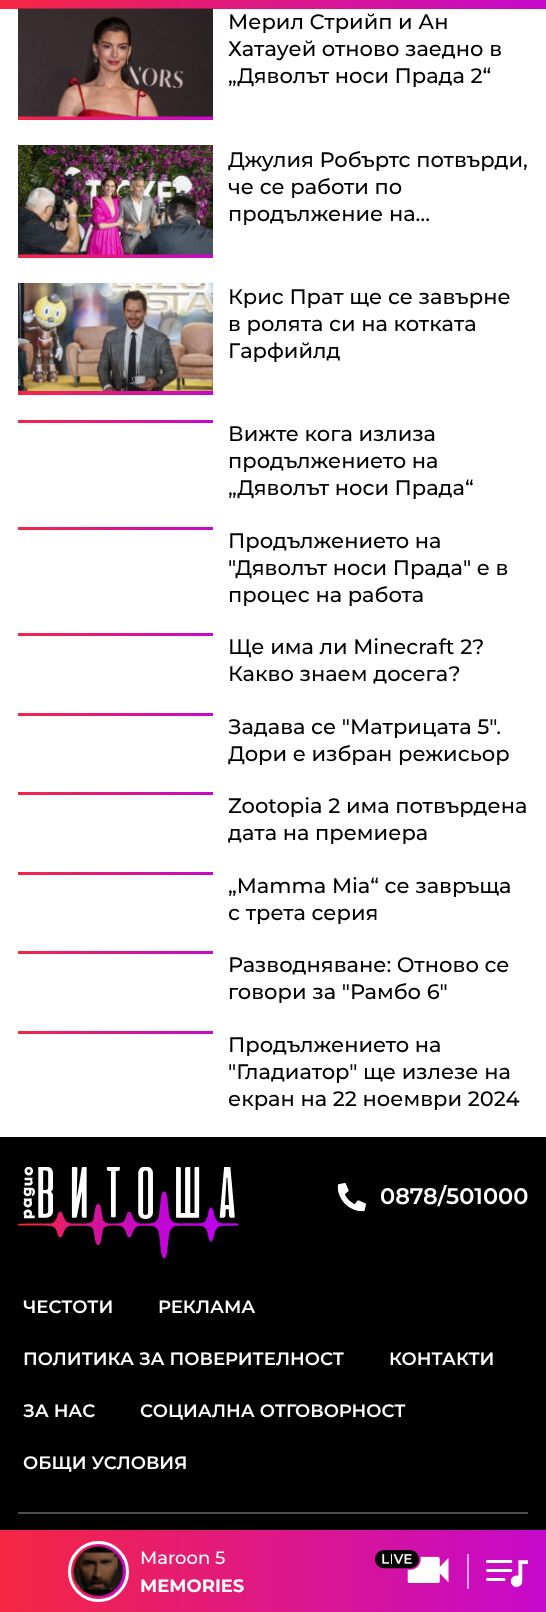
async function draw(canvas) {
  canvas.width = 546;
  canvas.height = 1612;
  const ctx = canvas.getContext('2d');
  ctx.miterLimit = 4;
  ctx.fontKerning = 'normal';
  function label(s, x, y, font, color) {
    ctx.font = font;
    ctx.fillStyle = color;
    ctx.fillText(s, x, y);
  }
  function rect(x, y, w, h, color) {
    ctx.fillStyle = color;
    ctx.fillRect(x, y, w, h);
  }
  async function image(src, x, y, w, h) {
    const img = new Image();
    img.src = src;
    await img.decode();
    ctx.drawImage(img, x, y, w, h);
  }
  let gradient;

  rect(0, 0, 546, 1612, '#000');
  gradient = ctx.createLinearGradient(0, 563, 546, 563);
  gradient.addColorStop(0, '#f52642');
  gradient.addColorStop(1, '#c609cc');
  ctx.fillStyle = gradient;
  ctx.fillRect(0, 0, 546, 9);
  rect(0, 9, 546, 1128, '#fff');
  gradient = ctx.createLinearGradient(18, 65, 213, 64);
  gradient.addColorStop(0, '#f52642');
  gradient.addColorStop(1, '#c609cc');
  ctx.fillStyle = gradient;
  ctx.fillRect(18, 116, 195, 4);
  await image('assets/img1.png', 18, 8, 195, 109);
  label('Мерил Стрийп и Ан', 228, 29, '500 21px Montserrat', '#000');
  label('Хатауей отново заедно в', 228, 56, '500 21px Montserrat', '#000');
  label('„Дяволът носи Прада 2“', 228, 83, '500 21px Montserrat', '#000');
  gradient = ctx.createLinearGradient(18, 202, 213, 202);
  gradient.addColorStop(0, '#f52642');
  gradient.addColorStop(1, '#c609cc');
  ctx.fillStyle = gradient;
  ctx.fillRect(18, 254, 195, 4);
  await image('assets/img2.png', 18, 145, 195, 110);
  label('Джулия Робъртс потвърди,', 228, 167, '500 21px Montserrat', '#000');
  label('че се работи по', 228, 194, '500 21px Montserrat', '#000');
  label('продължение на…', 228, 221, '500 21px Montserrat', '#000');
  gradient = ctx.createLinearGradient(18, 339, 213, 339);
  gradient.addColorStop(0, '#f52642');
  gradient.addColorStop(1, '#c609cc');
  ctx.fillStyle = gradient;
  ctx.fillRect(18, 391, 195, 4);
  await image('assets/img3.png', 18, 283, 195, 108);
  label('Крис Прат ще се завърне', 228, 304, '500 21px Montserrat', '#000');
  label('в ролята си на котката', 228, 331, '500 21px Montserrat', '#000');
  label('Гарфийлд', 228, 358, '500 21px Montserrat', '#000');
  gradient = ctx.createLinearGradient(18, 422, 213, 422);
  gradient.addColorStop(0, '#f52642');
  gradient.addColorStop(1, '#c609cc');
  ctx.fillStyle = gradient;
  ctx.fillRect(18, 420, 195, 3);
  label('Вижте кога излиза', 228, 441, '500 21px Montserrat', '#000');
  label('продължението на', 228, 468, '500 21px Montserrat', '#000');
  label('„Дяволът носи Прада“', 228, 495, '500 21px Montserrat', '#000');
  gradient = ctx.createLinearGradient(18, 528, 213, 528);
  gradient.addColorStop(0, '#f52642');
  gradient.addColorStop(1, '#c609cc');
  ctx.fillStyle = gradient;
  ctx.fillRect(18, 527, 195, 3);
  label('Продължението на', 228, 548, '500 21px Montserrat', '#000');
  label('"Дяволът носи Прада" е в', 228, 575, '500 21px Montserrat', '#000');
  label('процес на работа', 228, 602, '500 21px Montserrat', '#000');
  gradient = ctx.createLinearGradient(18, 635, 213, 635);
  gradient.addColorStop(0, '#f52642');
  gradient.addColorStop(1, '#c609cc');
  ctx.fillStyle = gradient;
  ctx.fillRect(18, 633, 195, 3);
  label('Ще има ли Minecraft 2?', 228, 654, '500 21px Montserrat', '#000');
  label('Какво знаем досега?', 228, 681, '500 21px Montserrat', '#000');
  gradient = ctx.createLinearGradient(18, 714, 213, 714);
  gradient.addColorStop(0, '#f52642');
  gradient.addColorStop(1, '#c609cc');
  ctx.fillStyle = gradient;
  ctx.fillRect(18, 713, 195, 3);
  label('Задава се "Матрицата 5".', 228, 734, '500 21px Montserrat', '#000');
  label('Дори е избран режисьор', 228, 761, '500 21px Montserrat', '#000');
  gradient = ctx.createLinearGradient(18, 794, 213, 794);
  gradient.addColorStop(0, '#f52642');
  gradient.addColorStop(1, '#c609cc');
  ctx.fillStyle = gradient;
  ctx.fillRect(18, 792, 195, 3);
  label('Zootopia 2 има потвърдена', 228, 813, '500 21px Montserrat', '#000');
  label('дата на премиера', 228, 840, '500 21px Montserrat', '#000');
  gradient = ctx.createLinearGradient(18, 873, 213, 873);
  gradient.addColorStop(0, '#f52642');
  gradient.addColorStop(1, '#c609cc');
  ctx.fillStyle = gradient;
  ctx.fillRect(18, 872, 195, 3);
  label('„Mamma Mia“ се завръща', 228, 893, '500 21px Montserrat', '#000');
  label('с трета серия', 228, 920, '500 21px Montserrat', '#000');
  gradient = ctx.createLinearGradient(18, 953, 213, 953);
  gradient.addColorStop(0, '#f52642');
  gradient.addColorStop(1, '#c609cc');
  ctx.fillStyle = gradient;
  ctx.fillRect(18, 951, 195, 3);
  label('Разводняване: Отново се', 228, 972, '500 21px Montserrat', '#000');
  label('говори за "Рамбо 6"', 228, 999, '500 21px Montserrat', '#000');
  gradient = ctx.createLinearGradient(18, 1032, 213, 1032);
  gradient.addColorStop(0, '#f52642');
  gradient.addColorStop(1, '#c609cc');
  ctx.fillStyle = gradient;
  ctx.fillRect(18, 1031, 195, 3);
  label('Продължението на', 228, 1052, '500 21px Montserrat', '#000');
  label('"Гладиатор" ще излезе на', 228, 1079, '500 21px Montserrat', '#000');
  label('екран на 22 ноември 2024', 228, 1106, '500 21px Montserrat', '#000');
  await image('assets/img4.png', 18, 1167, 221, 91);
  await image('assets/img5.png', 337, 1183, 29, 29);
  label('0878/501000', 380, 1204, '600 22.5px Montserrat', '#fff');
  label('ЧЕСТОТИ', 23, 1313, '600 18px Montserrat', '#fff');
  label('РЕКЛАМА', 158, 1313, '600 18px Montserrat', '#fff');
  label('ПОЛИТИКА ЗА ПОВЕРИТЕЛНОСТ', 23, 1365, '600 18px Montserrat', '#fff');
  label('КОНТАКТИ', 389, 1365, '600 18px Montserrat', '#fff');
  label('ЗА НАС', 23, 1417, '600 18px Montserrat', '#fff');
  label('СОЦИАЛНА ОТГОВОРНОСТ', 140, 1417, '600 18px Montserrat', '#fff');
  label('ОБЩИ УСЛОВИЯ', 23, 1469, '600 18px Montserrat', '#fff');
  rect(18, 1512, 510, 2, '#4d4d4d');
  gradient = ctx.createLinearGradient(0, 1571, 546, 1571);
  gradient.addColorStop(0, '#f52642');
  gradient.addColorStop(1, '#c609cc');
  ctx.fillStyle = gradient;
  ctx.fillRect(0, 1530, 546, 82);
  ctx.save();
  ctx.beginPath();
  ctx.roundRect(68, 1541, 61, 61, 30.5);
  ctx.clip();
  gradient = ctx.createLinearGradient(71, 1571, 126, 1571);
  gradient.addColorStop(0, '#f52642');
  gradient.addColorStop(1, '#c609cc');
  ctx.fillStyle = gradient;
  ctx.fillRect(71, 1541, 55, 61);
  ctx.restore();
  ctx.beginPath();
  ctx.arc(98.5, 1571.5, 29, 0, 2 * Math.PI);
  ctx.strokeStyle = '#fff';
  ctx.lineWidth = 3;
  ctx.stroke();
  await image('assets/img6.png', 73, 1546, 51, 51);
  label('Maroon 5', 140, 1564, '500 18px Montserrat', '#fff');
  label('MEMORIES', 140, 1592, 'bold 18px Montserrat', '#fff');
  await image('assets/img7.png', 375, 1550, 74, 33);
  rect(467, 1554, 2, 35, '#eb9ee3');
  await image('assets/img8.png', 486, 1560, 42, 27);
}

draw(document.querySelector('canvas'));
